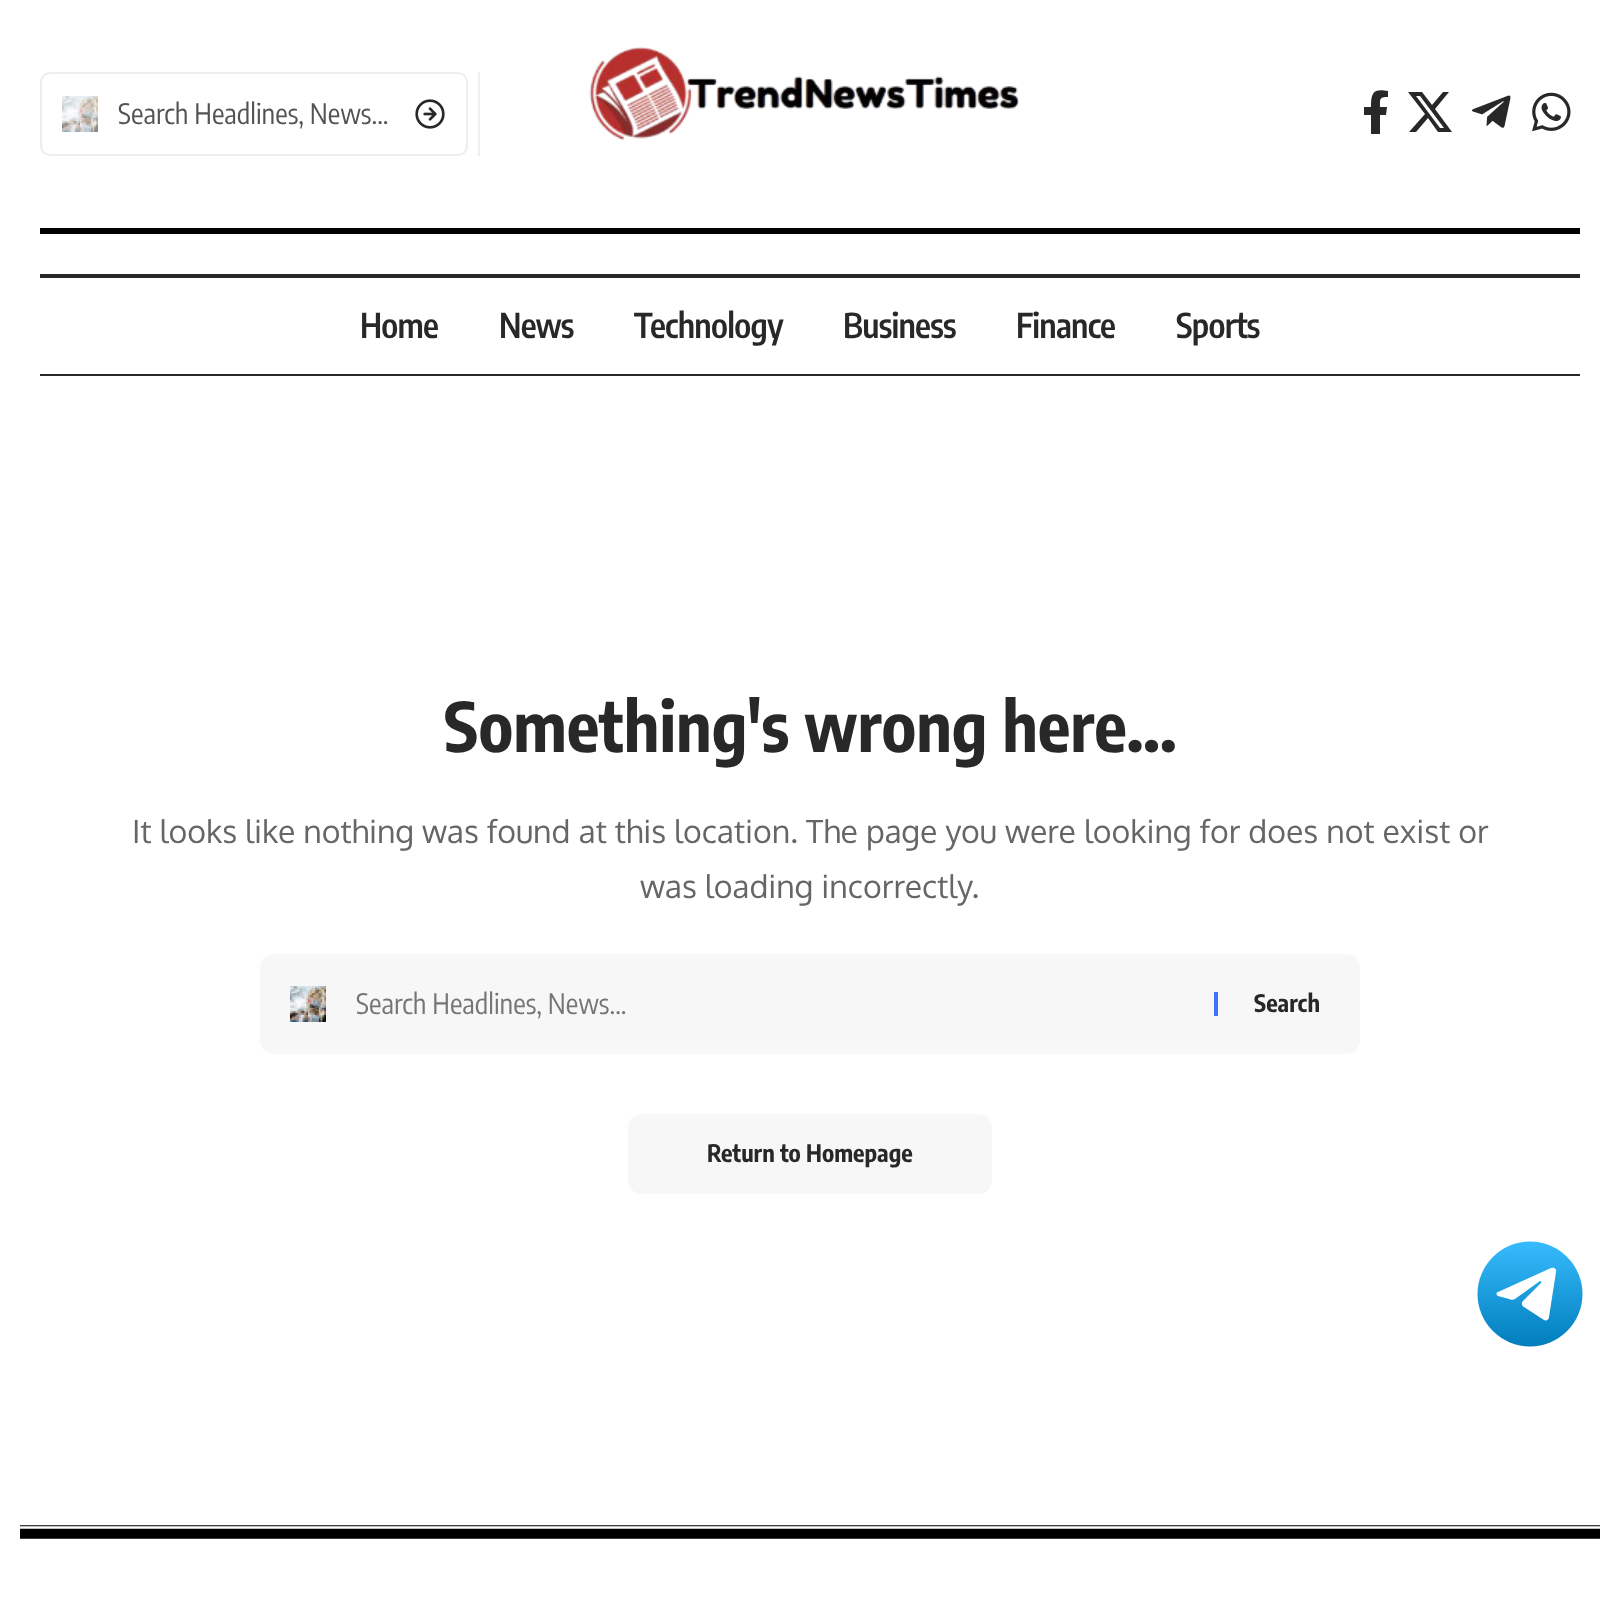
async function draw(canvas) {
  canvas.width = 1620;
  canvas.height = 1607;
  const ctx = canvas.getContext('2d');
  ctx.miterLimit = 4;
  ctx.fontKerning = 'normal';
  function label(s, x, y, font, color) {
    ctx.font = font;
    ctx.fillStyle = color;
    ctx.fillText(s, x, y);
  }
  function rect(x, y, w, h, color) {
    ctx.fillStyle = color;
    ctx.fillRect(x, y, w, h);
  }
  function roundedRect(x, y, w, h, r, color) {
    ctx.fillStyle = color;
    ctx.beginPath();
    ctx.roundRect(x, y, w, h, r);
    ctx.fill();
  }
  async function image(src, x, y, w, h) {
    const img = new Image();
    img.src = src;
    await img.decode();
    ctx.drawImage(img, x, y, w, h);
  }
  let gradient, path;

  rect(0, 0, 1620, 1607, '#fff');
  rect(478, 72, 2, 84, '#efefef');
  ctx.beginPath();
  ctx.roundRect(41, 73, 426, 82, 9);
  ctx.strokeStyle = '#ededed';
  ctx.lineWidth = 2;
  ctx.stroke();
  await image('assets/img1.png', 62, 96, 36, 36);
  label('Search Headlines, News...', 118, 124, '28px Encode Sans Condensed', '#535353');
  await image('assets/img2.png', 415, 99, 30, 30);
  await image('assets/img3.png', 589, 47, 430, 93);
  ctx.fillStyle = '#282828';
  path = new Path2D('M1386 115L1387 107H1380C1380 99 1379 97 1388 97V91C1373 88 1371 93 1371 107H1364V115H1371V134H1380V115Z');
  ctx.fill(path);
  path = new Path2D('M1443 92H1449L1435 109L1452 132H1438L1428 118L1416 132H1409L1425 114L1408 92H1422L1432 105ZM1440 128H1444L1420 96H1416Z');
  ctx.fill(path);
  await image('assets/img4.png', 1472, 95, 39, 33);
  await image('assets/img5.png', 1532, 92, 39, 40);
  rect(40, 228, 1540, 6, '#000');
  rect(40, 274, 1540, 4, '#282828');
  rect(40, 374, 1540, 2, '#282828');
  ctx.letterSpacing = '-0.75px';
  label('Home', 360, 338, '600 34px Encode Sans Condensed', '#282828');
  label('News', 499, 338, '600 34px Encode Sans Condensed', '#282828');
  label('Technology', 634, 338, '600 34px Encode Sans Condensed', '#282828');
  label('Business', 843, 338, '600 34px Encode Sans Condensed', '#282828');
  label('Finance', 1016, 338, '600 34px Encode Sans Condensed', '#282828');
  label('Sports', 1176, 338, '600 34px Encode Sans Condensed', '#282828');
  ctx.letterSpacing = '0px';
  label('Something\'s wrong here...', 444, 752, 'bold 68px Encode Sans Condensed', '#282828');
  label('It looks like nothing was found at this location. The page you were looking for does not exist or', 132, 843, '32px Oxygen', '#666');
  label('was loading incorrectly.', 640, 898, '32px Oxygen', '#666');
  roundedRect(260, 954, 1100, 100, 14, '#f7f7f7');
  await image('assets/img6.png', 290, 986, 36, 36);
  label('Search Headlines, News...', 356, 1014, '28px Encode Sans Condensed', '#757575');
  rect(1214, 992, 4, 24, '#4173ff');
  label('Search', 1254, 1012, 'bold 24px Encode Sans Condensed', '#282828');
  roundedRect(628, 1114, 364, 80, 14, '#f7f7f7');
  label('Return to Homepage', 707, 1162, 'bold 24px Encode Sans Condensed', '#282828');
  gradient = ctx.createLinearGradient(1530, 1242, 1530, 1347);
  gradient.addColorStop(0, '#37bbfe');
  gradient.addColorStop(1, '#007dbb');
  ctx.fillStyle = gradient;
  ctx.beginPath();
  ctx.arc(1530, 1294, 52.5, 0, 2 * Math.PI);
  ctx.fill();
  ctx.fillStyle = '#fff';
  path = new Path2D('M1556 1272C1557 1269 1554 1267 1551 1268L1498 1292C1496 1292 1496 1295 1498 1296L1509 1299C1511 1300 1513 1300 1515 1299L1540 1281C1541 1281 1542 1282 1541 1283L1523 1301C1521 1303 1522 1306 1524 1307L1544 1320C1546 1321 1549 1320 1549 1317Z');
  ctx.fill(path);
  await image('assets/img7.png', 20, 1525, 1580, 14);
}

draw(document.querySelector('canvas'));
